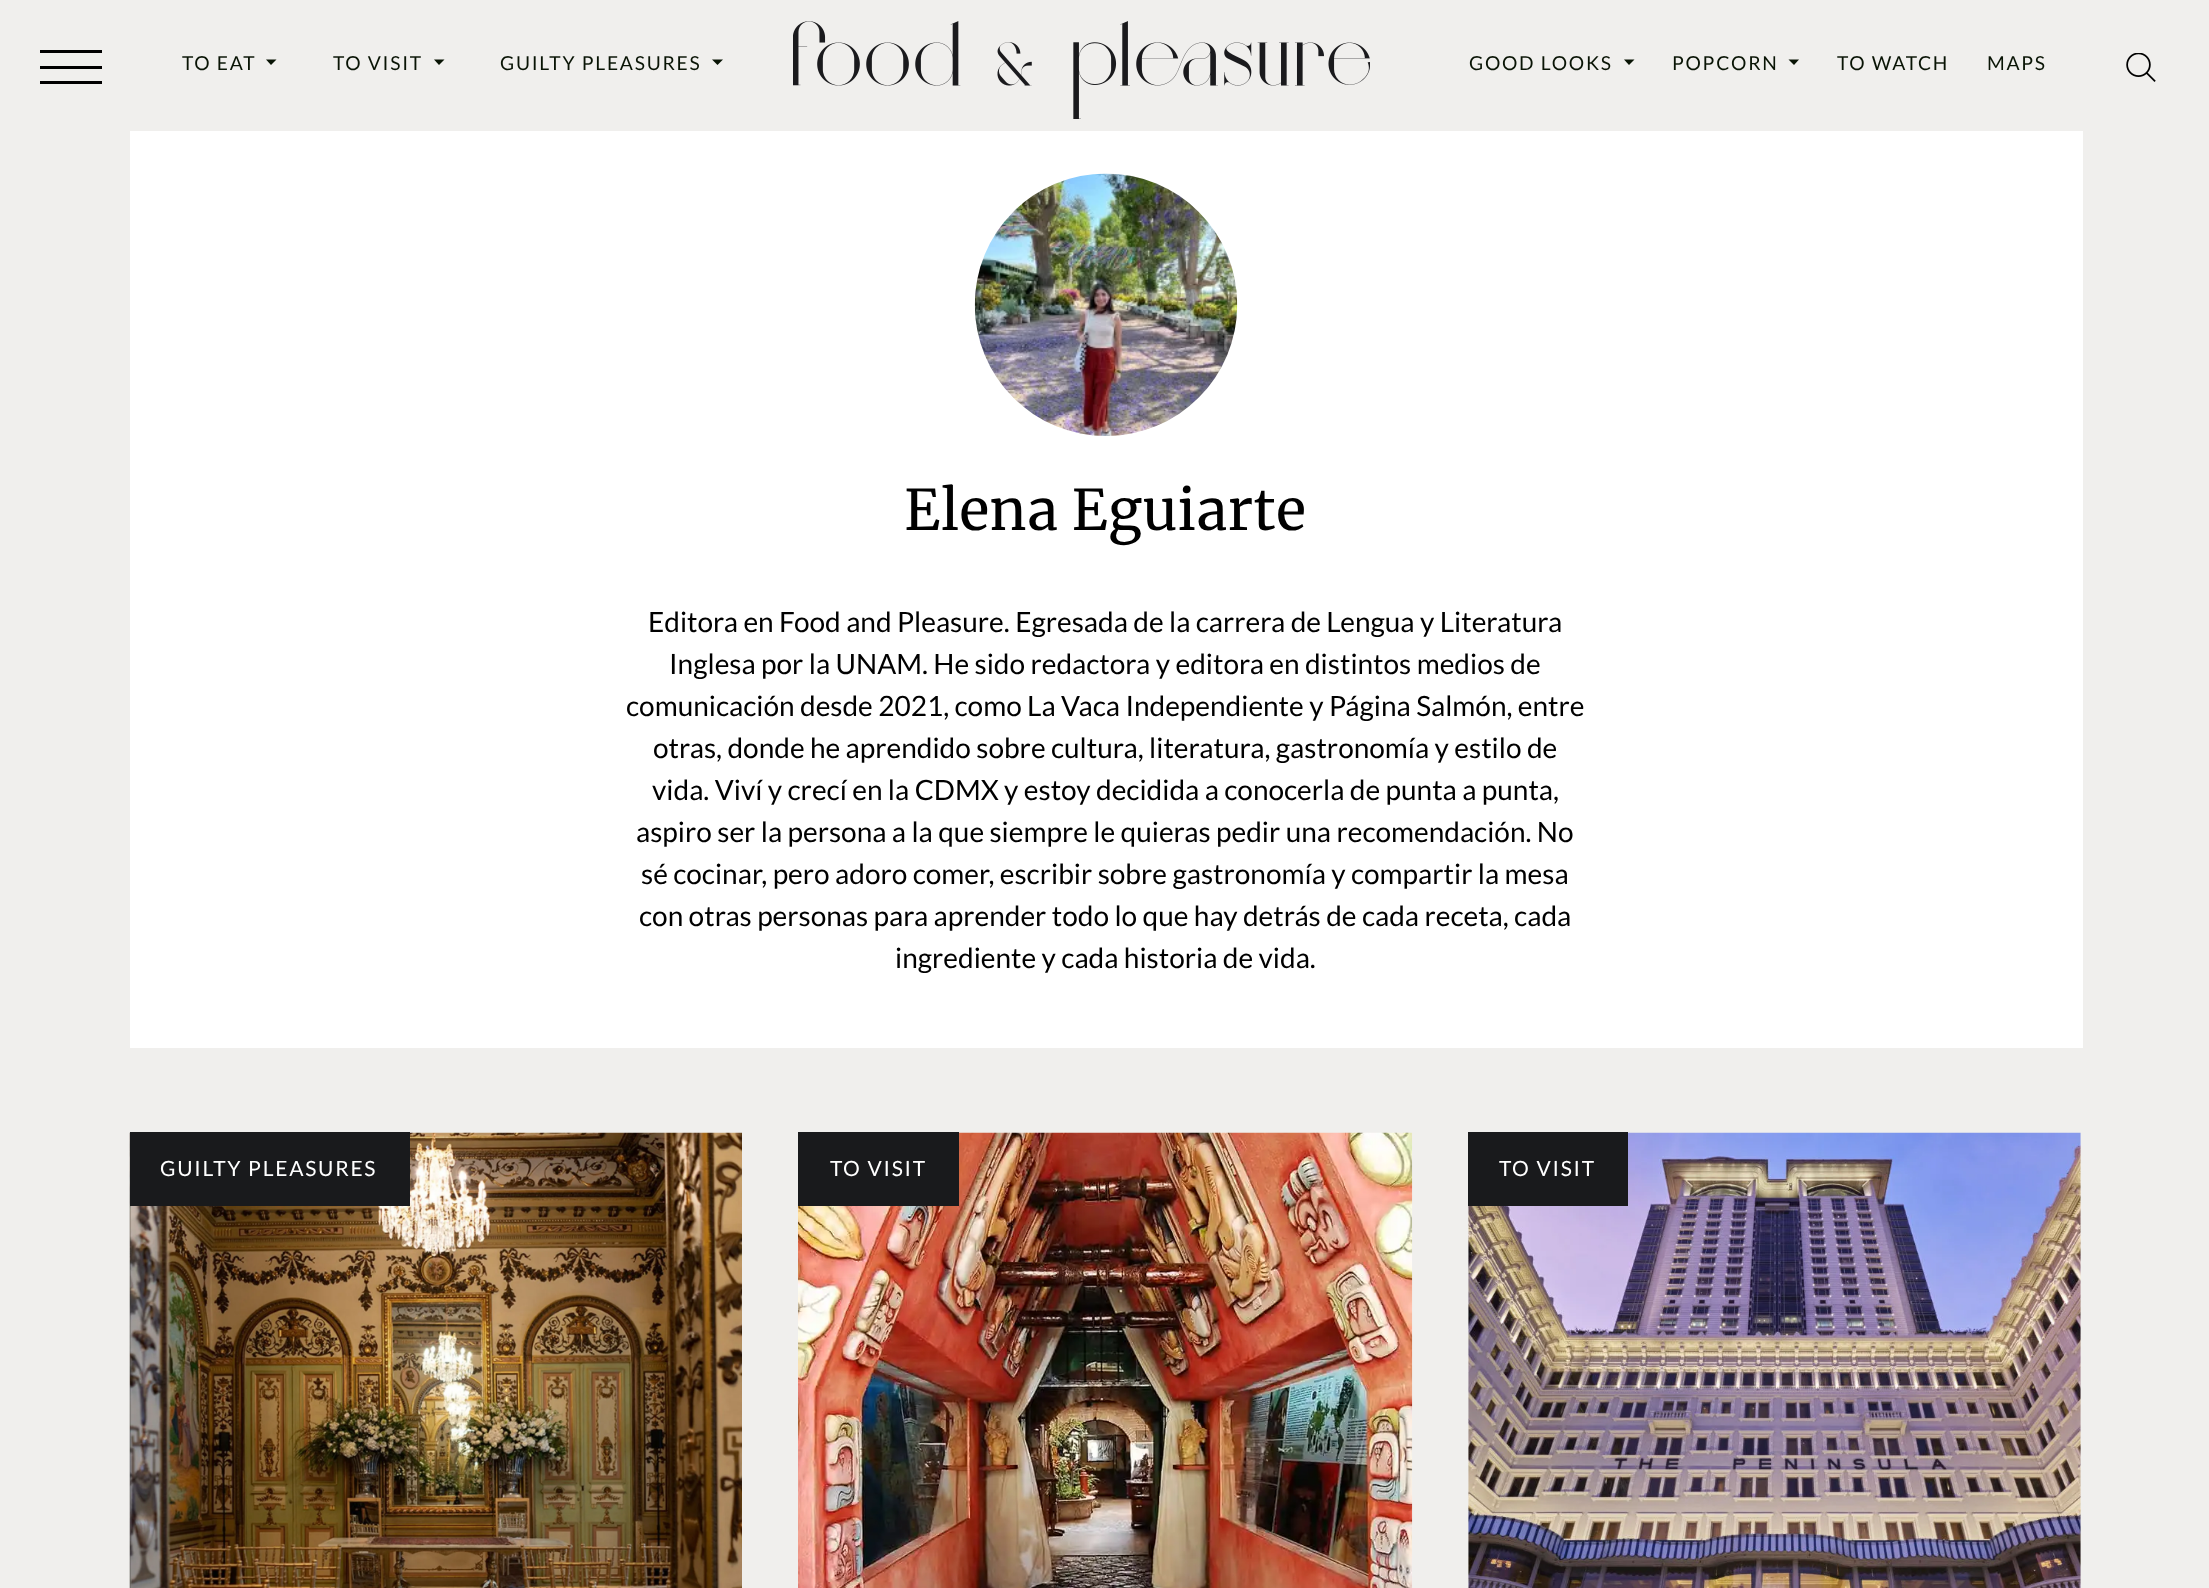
async function draw(canvas) {
  canvas.width = 2209;
  canvas.height = 1588;
  const ctx = canvas.getContext('2d');
  ctx.miterLimit = 4;
  ctx.fontKerning = 'normal';
  function label(s, x, y, font, color) {
    ctx.font = font;
    ctx.fillStyle = color;
    ctx.fillText(s, x, y);
  }
  function rect(x, y, w, h, color) {
    ctx.fillStyle = color;
    ctx.fillRect(x, y, w, h);
  }
  async function image(src, x, y, w, h) {
    const img = new Image();
    img.src = src;
    await img.decode();
    ctx.drawImage(img, x, y, w, h);
  }
  let path;

  rect(0, 0, 2209, 1588, '#f0efed');
  rect(40, 50, 62, 3, '#000');
  rect(40, 66, 62, 3, '#000');
  rect(40, 81, 62, 3, '#000');
  ctx.letterSpacing = '1.75px';
  label('TO EAT', 182, 70, '19.25px Lato', '#091405');
  path = new Path2D('M266 59.5H276.5L271 65Z');
  ctx.fill(path);
  label('TO VISIT', 333, 70, '19.25px Lato', '#091405');
  path = new Path2D('M434 59.5H444.5L439 65Z');
  ctx.fill(path);
  label('GUILTY PLEASURES', 500, 70, '19.25px Lato', '#091405');
  path = new Path2D('M712 59.5H723L717.5 65Z');
  ctx.fill(path);
  await image('assets/img1.png', 793, 21, 577, 98);
  label('GOOD LOOKS', 1469, 70, '19.25px Lato', '#091405');
  path = new Path2D('M1624 59.5H1634.5L1629 65Z');
  ctx.fill(path);
  label('POPCORN', 1672, 70, '19.25px Lato', '#091405');
  path = new Path2D('M1788.5 59.5H1799L1794 65Z');
  ctx.fill(path);
  label('TO WATCH', 1837, 70, '19.25px Lato', '#091405');
  label('MAPS', 1987, 70, '19.25px Lato', '#091405');
  await image('assets/img2.png', 2126, 53, 30, 29);
  rect(130, 131, 1953, 917, '#fff');
  await image('assets/img3.png', 974, 173, 264, 263);
  ctx.letterSpacing = '0px';
  label('Elena Eguiarte', 904, 530, '56px Merriweather', '#000');
  label('Editora en Food and Pleasure. Egresada de la carrera de Lengua y Literatura', 648, 632, '28px Lato', '#000');
  label('Inglesa por la UNAM. He sido redactora y editora en distintos medios de', 669, 674, '28px Lato', '#000');
  label('comunicación desde 2021, como La Vaca Independiente y Página Salmón, entre', 626, 716, '28px Lato', '#000');
  label('otras, donde he aprendido sobre cultura, literatura, gastronomía y estilo de', 653, 758, '28px Lato', '#000');
  label('vida. Viví y crecí en la CDMX y estoy decidida a conocerla de punta a punta,', 652, 800, '28px Lato', '#000');
  label('aspiro ser la persona a la que siempre le quieras pedir una recomendación. No', 636, 842, '28px Lato', '#000');
  label('sé cocinar, pero adoro comer, escribir sobre gastronomía y compartir la mesa', 641, 884, '28px Lato', '#000');
  label('con otras personas para aprender todo lo que hay detrás de cada receta, cada', 639, 926, '28px Lato', '#000');
  label('ingrediente y cada historia de vida.', 895, 968, '28px Lato', '#000');
  await image('assets/img4.png', 129, 1132, 613, 456);
  rect(130, 1132, 280, 74, '#191a1c');
  ctx.letterSpacing = '1.75px';
  label('GUILTY PLEASURES', 160, 1176, '21px Lato', '#fff');
  await image('assets/img5.png', 798, 1132, 615, 456);
  rect(798, 1132, 161, 74, '#191a1c');
  label('TO VISIT', 830, 1176, '21px Lato', '#fff');
  await image('assets/img6.png', 1468, 1132, 613, 456);
  rect(1468, 1132, 160, 74, '#191a1c');
  label('TO VISIT', 1499, 1176, '21px Lato', '#fff');
}

draw(document.querySelector('canvas'));
